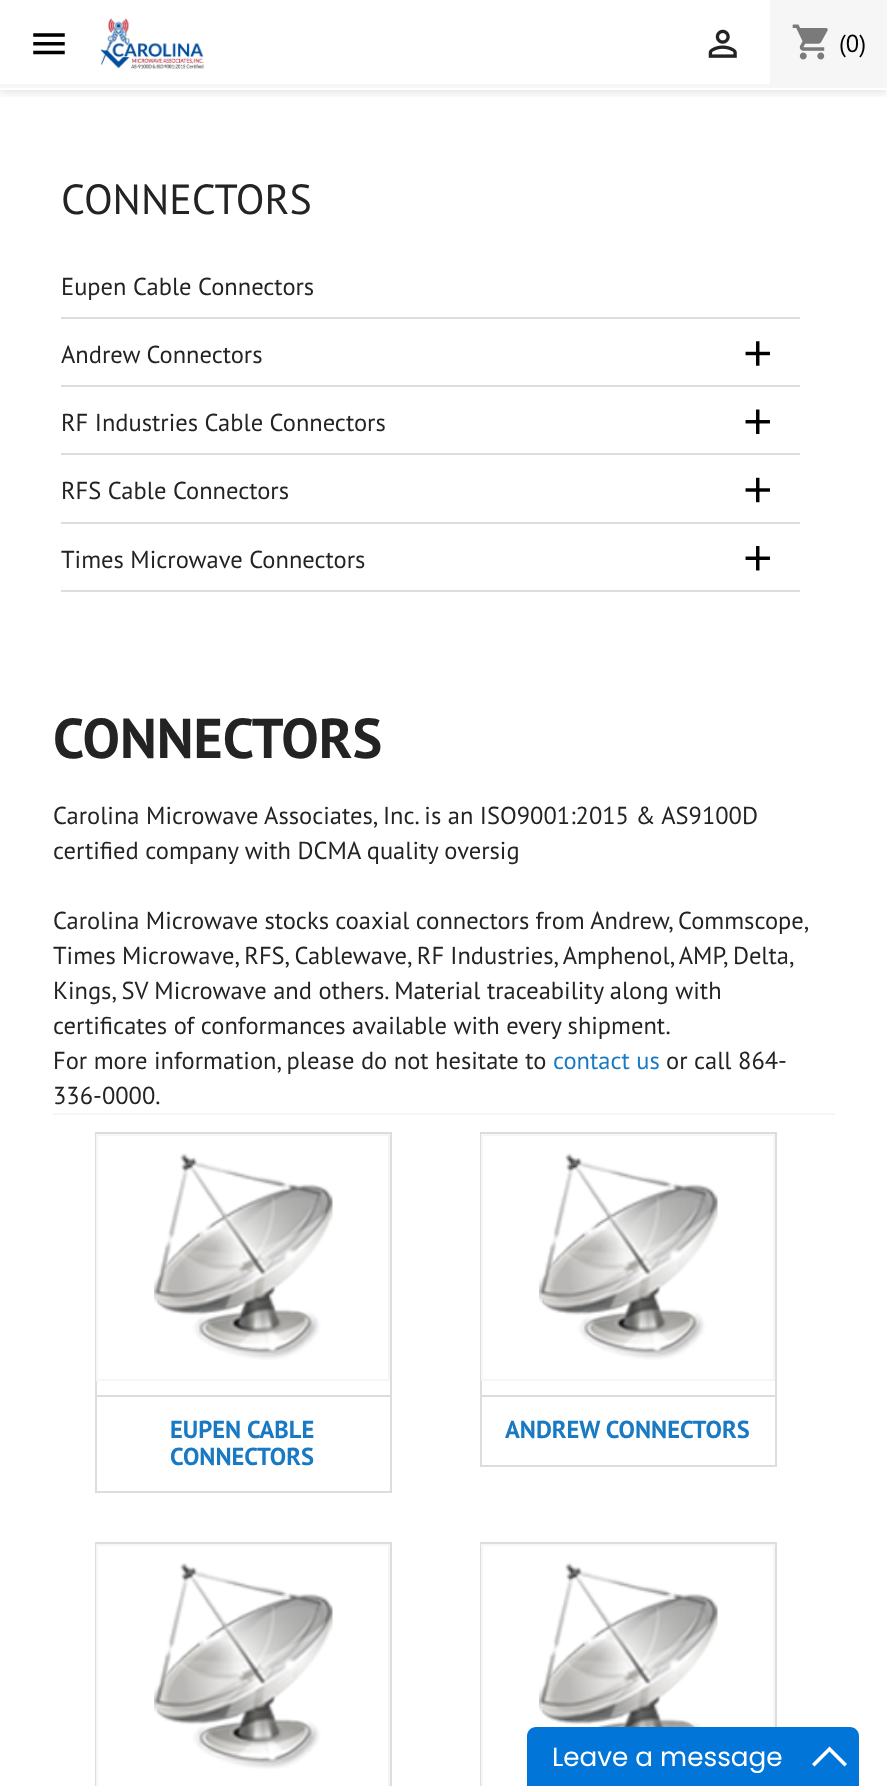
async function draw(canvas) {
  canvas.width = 887;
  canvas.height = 1786;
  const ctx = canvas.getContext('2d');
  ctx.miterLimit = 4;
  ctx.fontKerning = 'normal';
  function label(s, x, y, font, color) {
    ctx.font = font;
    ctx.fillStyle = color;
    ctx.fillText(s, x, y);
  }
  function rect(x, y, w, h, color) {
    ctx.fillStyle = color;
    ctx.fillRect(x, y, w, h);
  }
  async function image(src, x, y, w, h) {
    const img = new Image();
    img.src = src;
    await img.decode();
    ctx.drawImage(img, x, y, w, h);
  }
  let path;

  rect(0, 0, 887, 1786, '#fff');
  ctx.save();
  ctx.beginPath();
  ctx.rect(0, 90, 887, 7);
  ctx.clip();
  ctx.fillStyle = '#0000001c';
  ctx.filter = 'blur(4.5px)';
  ctx.beginPath();
  ctx.rect(0, 4, 887, 89);
  ctx.fill();
  ctx.filter = 'none';
  ctx.restore();
  rect(0, 84, 887, 4, '#f6f6f6');
  await image('assets/img1.png', 33, 33, 32, 22);
  await image('assets/img2.png', 100, 18, 104, 51);
  await image('assets/img3.png', 708, 29, 29, 29);
  rect(770, 0, 117, 84, '#f6f6f6');
  await image('assets/img4.png', 792, 24, 36, 36);
  label('(0)', 839, 52, '24.5px PT Sans', '#000');
  rect(0, 89, 887, 1, '#fff');
  label('CONNECTORS', 61, 214, '42px PT Sans', '#232323');
  rect(61, 317, 739, 2, '#ddd');
  label('Eupen Cable Connectors', 61, 295, '24.5px PT Sans', '#232323');
  rect(61, 385, 739, 2, '#ddd');
  label('Andrew Connectors', 61, 363, '24.5px PT Sans', '#232323');
  await image('assets/img5.png', 745, 341, 25, 25);
  rect(61, 453, 739, 2, '#ddd');
  label('RF Industries Cable Connectors', 61, 431, '24.5px PT Sans', '#232323');
  await image('assets/img6.png', 745, 409, 25, 25);
  rect(61, 522, 739, 2, '#ddd');
  label('RFS Cable Connectors', 61, 499, '24.5px PT Sans', '#232323');
  await image('assets/img7.png', 745, 477, 25, 26);
  rect(61, 590, 739, 2, '#ddd');
  label('Times Microwave Connectors', 61, 568, '24.5px PT Sans', '#232323');
  await image('assets/img8.png', 745, 546, 25, 25);
  label('CONNECTORS', 53, 758, 'bold 56px PT Sans', '#232323');
  label('Carolina Microwave Associates, Inc. is an ISO9001:2015 & AS9100D', 53, 824, '24.5px PT Sans', '#232323');
  label('certified company with DCMA quality oversig', 53, 859, '24.5px PT Sans', '#232323');
  ctx.wordSpacing = '-0.25px';
  label('Carolina Microwave stocks coaxial connectors from Andrew, Commscope,', 53, 929, '24.5px PT Sans', '#232323');
  label('Times Microwave, RFS, Cablewave, RF Industries, Amphenol, AMP, Delta,', 53, 964, '24.5px PT Sans', '#232323');
  ctx.wordSpacing = '0px';
  label('Kings, SV Microwave and others. Material traceability along with', 53, 999, '24.5px PT Sans', '#232323');
  label('certificates of conformances available with every shipment.', 53, 1034, '24.5px PT Sans', '#232323');
  label('For more information, please do not hesitate to', 53, 1069, '24.5px PT Sans', '#232323');
  label('contact us', 553, 1069, '24.5px PT Sans', '#1979c3');
  label('or call 864-', 666, 1069, '24.5px PT Sans', '#232323');
  label('336-0000.', 53, 1104, '24.5px PT Sans', '#232323');
  rect(53, 1113, 782, 2, '#f6f6f6');
  ctx.strokeStyle = '#ddd';
  ctx.lineWidth = 2;
  ctx.strokeRect(96, 1133, 295, 263);
  ctx.strokeStyle = '#f6f6f6';
  ctx.strokeRect(97, 1135, 292, 245);
  await image('assets/img9.png', 154, 1153, 179, 207);
  rect(390, 1397, 2, 96, '#ddd');
  rect(95, 1491, 297, 2, '#ddd');
  rect(95, 1397, 2, 96, '#ddd');
  label('EUPEN CABLE', 170, 1438, 'bold 24.5px PT Sans', '#1979c3');
  label('CONNECTORS', 170, 1465, 'bold 24.5px PT Sans', '#1979c3');
  ctx.strokeStyle = '#ddd';
  ctx.strokeRect(481, 1133, 295, 263);
  ctx.strokeStyle = '#f6f6f6';
  ctx.strokeRect(482, 1135, 292, 245);
  await image('assets/img9.png', 539, 1153, 179, 207);
  rect(775, 1397, 2, 70, '#ddd');
  rect(480, 1465, 297, 2, '#ddd');
  rect(480, 1397, 2, 70, '#ddd');
  label('ANDREW CONNECTORS', 505, 1438, 'bold 24.5px PT Sans', '#1979c3');
  ctx.strokeStyle = '#ddd';
  ctx.strokeRect(96, 1543, 295, 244);
  ctx.strokeStyle = '#f6f6f6';
  ctx.strokeRect(97, 1545, 292, 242);
  await image('assets/img10.png', 154, 1562, 179, 207);
  ctx.strokeStyle = '#ddd';
  ctx.strokeRect(481, 1543, 295, 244);
  ctx.strokeStyle = '#f6f6f6';
  ctx.strokeRect(482, 1545, 292, 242);
  await image('assets/img11.png', 539, 1562, 179, 165);
  ctx.fillStyle = '#0275d8';
  path = new Path2D('M536 1727H850C855 1727 859 1731 859 1736V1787H527V1736C527 1731 531 1727 536 1727Z');
  ctx.fill(path);
  label('Leave a message', 552, 1766, '26.25px Poppins', '#fff');
  path = new Path2D('M829.5 1746.5L847 1764L844.5 1766.5L829.5 1751.5L814.5 1766.5L812 1764Z');
  ctx.fill(path);
}

draw(document.querySelector('canvas'));
